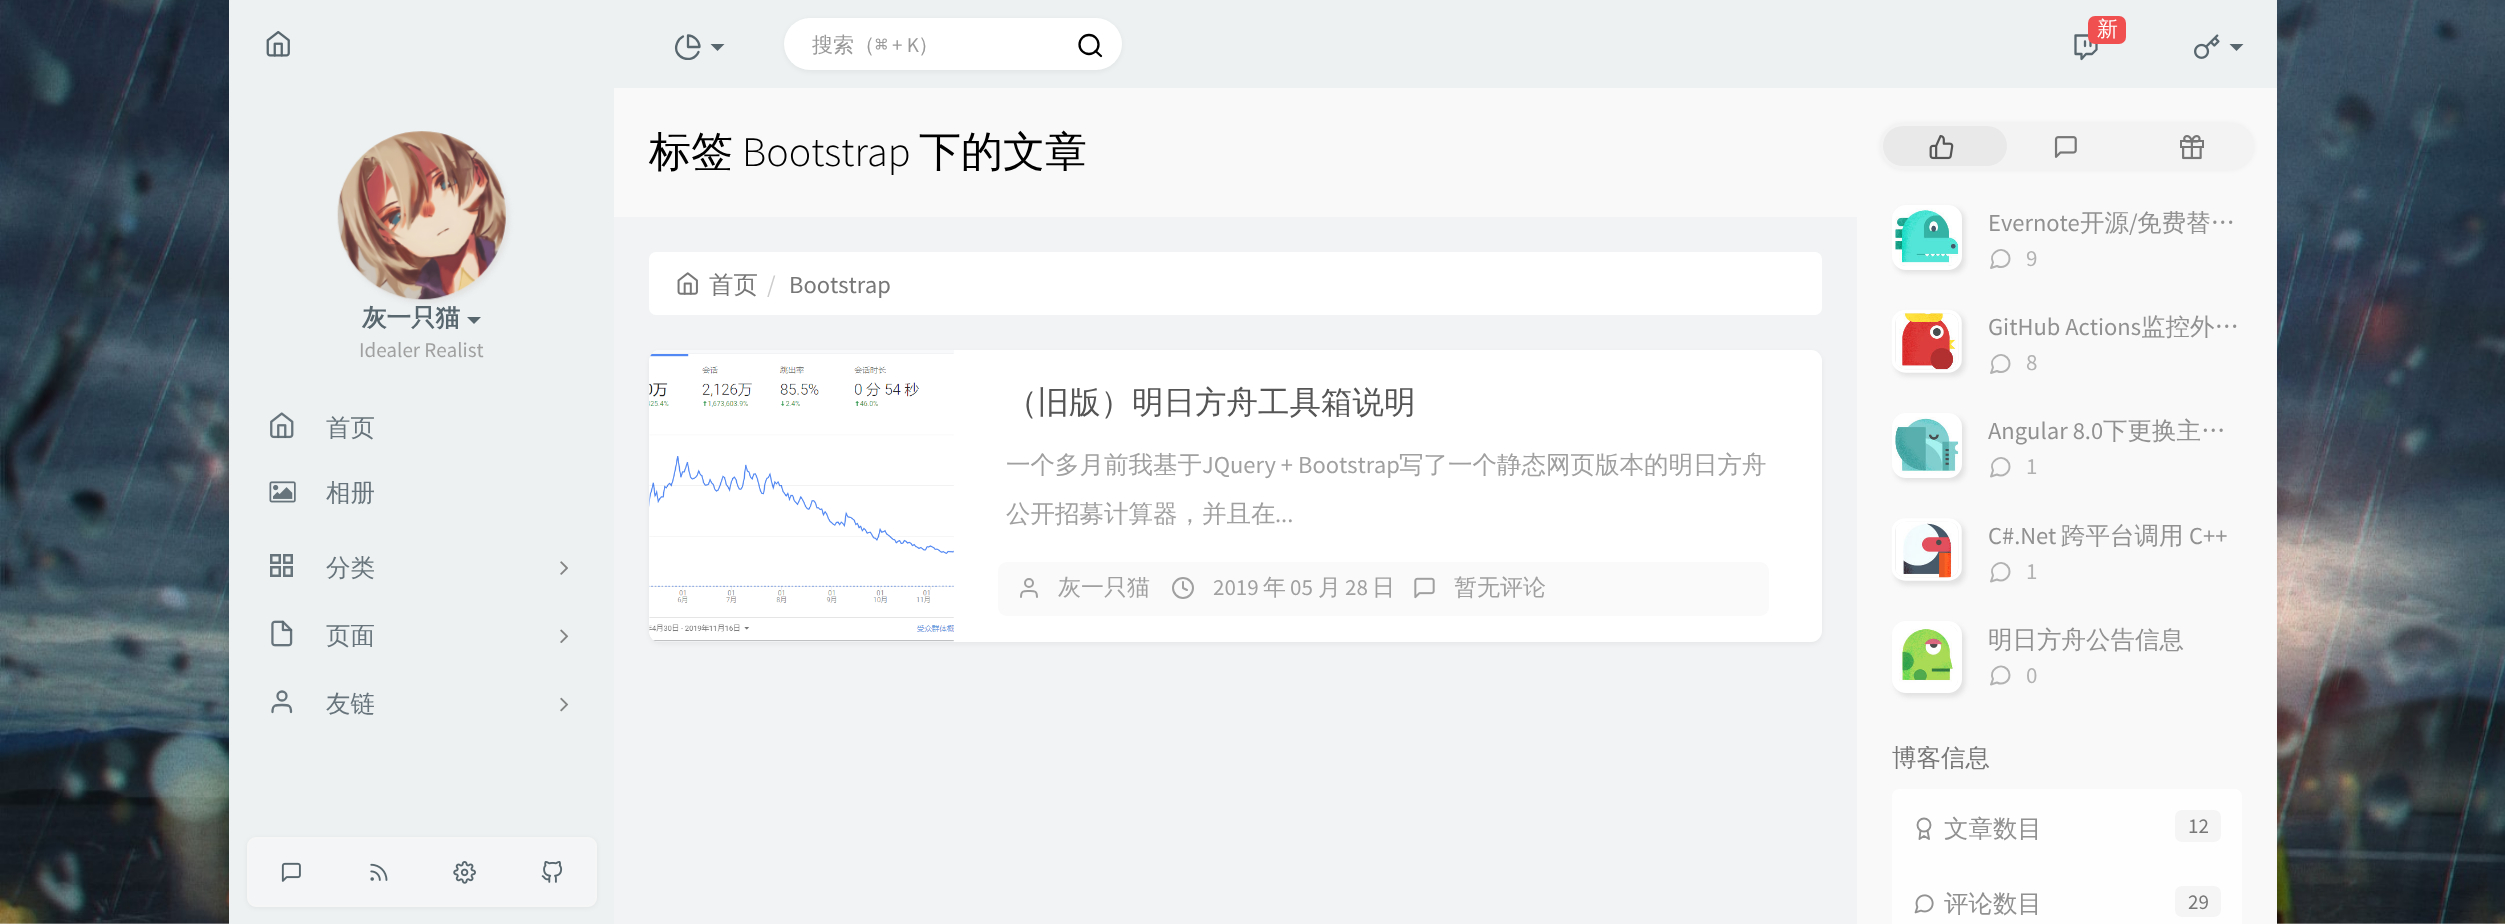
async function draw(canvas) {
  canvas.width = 2505;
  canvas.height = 924;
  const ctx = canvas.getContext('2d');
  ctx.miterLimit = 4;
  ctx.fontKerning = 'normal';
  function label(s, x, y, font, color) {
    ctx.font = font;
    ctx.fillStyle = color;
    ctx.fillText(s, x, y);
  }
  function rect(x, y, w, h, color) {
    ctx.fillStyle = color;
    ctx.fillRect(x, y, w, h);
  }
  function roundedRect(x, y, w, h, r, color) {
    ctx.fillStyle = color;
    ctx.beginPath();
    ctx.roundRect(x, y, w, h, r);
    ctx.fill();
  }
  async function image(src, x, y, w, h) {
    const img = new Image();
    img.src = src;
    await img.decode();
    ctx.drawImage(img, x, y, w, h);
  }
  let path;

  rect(0, 0, 2505, 924, '#fff');
  await image('assets/img1.png', 0, 0, 2505, 924);
  ctx.fillStyle = '#0000000d';
  ctx.filter = 'blur(3.5px)';
  ctx.beginPath();
  ctx.rect(224, -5, 2058, 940);
  ctx.fill();
  ctx.filter = 'none';
  rect(229, 0, 385, 924, '#edf1f2');
  await image('assets/img2.png', 266, 31, 24, 26);
  rect(614, 0, 1663, 88, '#edf1f2');
  path = new Path2D('M2096.5 35.5H2075.5V54H2081.5V59L2086 54H2092L2096.5 49.5ZM2085 46V41.5M2090.5 46V41.5');
  ctx.strokeStyle = '#58666e';
  ctx.lineWidth = 2.3;
  ctx.lineCap = 'round';
  ctx.lineJoin = 'round';
  ctx.stroke(path);
  roundedRect(2088, 16, 38, 28, 7, '#f05050');
  label('新', 2097, 36, '500 21px WenQuanYi Zen Hei', '#fff');
  await image('assets/img3.png', 2194, 34, 26, 25);
  ctx.fillStyle = '#58666e';
  path = new Path2D('M2229.5 44H2243.5L2236.5 51Z');
  ctx.fill(path);
  path = new Path2D('M698.5 52C692.5 65.5 671.5 57.5 677 43.5C678 40.5 680 38 683 36.5M699.5 47C699.5 41 694 35.5 688 35.5V47Z');
  ctx.stroke(path);
  path = new Path2D('M710.5 44H724.5L717.5 51Z');
  ctx.fill(path);
  ctx.fillStyle = '#0000000d';
  ctx.filter = 'blur(2.5px)';
  ctx.beginPath();
  ctx.roundRect(784, 19, 338, 53, 26.5);
  ctx.fill();
  ctx.filter = 'none';
  roundedRect(784, 18, 338, 52, 26, '#fff');
  label('搜索（', 812, 52, '500 21px WenQuanYi Zen Hei', '#999');
  label('⌘', 875, 52, '21px DejaVu Sans Mono', '#999');
  label('+ K', 892, 52, '21px Source Sans Pro', '#999');
  label('）', 918, 52, '500 21px WenQuanYi Zen Hei', '#999');
  ctx.beginPath();
  ctx.arc(1089, 44.5, 9.5, 0, 2 * Math.PI);
  ctx.strokeStyle = '#000';
  ctx.stroke();
  path = new Path2D('M1101 56L1095.5 51');
  ctx.stroke(path);
  ctx.fillStyle = '#e1e1e1';
  ctx.filter = 'blur(2.5px)';
  ctx.beginPath();
  ctx.roundRect(341, 135, 168, 168, 84);
  ctx.fill();
  ctx.filter = 'none';
  await image('assets/img4.png', 337, 131, 169, 169);
  label('灰一只猫', 362, 326, 'bold 24.5px WenQuanYi Zen Hei', '#58666e');
  path = new Path2D('M467 317H481L474 324Z');
  ctx.fill(path);
  label('Idealer Realist', 359, 357, '21px Source Sans Pro', '#a0a0a0');
  await image('assets/img5.png', 270, 412, 24, 27);
  label('首页', 326, 436, '500 24.5px WenQuanYi Zen Hei', '#67747b');
  await image('assets/img6.png', 269, 481, 27, 22);
  label('相册', 326, 501, '500 24.5px WenQuanYi Zen Hei', '#67747b');
  ctx.strokeStyle = '#67747b';
  ctx.lineWidth = 2.5;
  ctx.lineJoin = 'miter';
  ctx.strokeRect(271.25, 555.25, 8.5, 7.5);
  ctx.strokeRect(284.25, 555.25, 7.5, 7.5);
  ctx.strokeRect(271.25, 567.25, 8.5, 8.5);
  ctx.strokeRect(284.25, 567.25, 7.5, 8.5);
  label('分类', 326, 576, '500 24.5px WenQuanYi Zen Hei', '#67747b');
  await image('assets/img7.png', 560, 561, 8, 14);
  await image('assets/img8.png', 271, 620, 22, 27);
  label('页面', 326, 644, '500 24.5px WenQuanYi Zen Hei', '#67747b');
  await image('assets/img9.png', 560, 629, 9, 14);
  ctx.beginPath();
  ctx.arc(282, 696, 4.5, 0, 2 * Math.PI);
  ctx.lineWidth = 2.3;
  ctx.stroke();
  path = new Path2D('M291 712C291 705 288.5 705 282 705C275 705 272.5 705 272.5 712');
  ctx.lineJoin = 'round';
  ctx.stroke(path);
  label('友链', 326, 712, '500 24.5px WenQuanYi Zen Hei', '#67747b');
  await image('assets/img10.png', 560, 697, 9, 15);
  ctx.fillStyle = '#0000000d';
  ctx.filter = 'blur(2.5px)';
  ctx.beginPath();
  ctx.roundRect(247, 838, 350, 70, 9);
  ctx.fill();
  ctx.filter = 'none';
  ctx.fillStyle = '#f3f5f6';
  ctx.beginPath();
  ctx.roundRect(248, 838, 348, 68, 8);
  ctx.fill();
  ctx.strokeStyle = '#f6f6f6';
  ctx.lineWidth = 2;
  ctx.lineJoin = 'miter';
  ctx.stroke();
  await image('assets/img11.png', 281, 862, 20, 20);
  await image('assets/img12.png', 370, 863, 18, 18);
  await image('assets/img13.png', 453, 861, 23, 23);
  await image('assets/img14.png', 541, 861, 22, 22);
  rect(614, 217, 1243, 707, '#f1f3f4');
  rect(614, 88, 1243, 129, '#f9f9f9');
  label('标签', 649, 166, '500 42px WenQuanYi Zen Hei', '#000');
  label('Bootstrap', 742, 166, '300 42px Source Sans Pro', '#000');
  label('下的文章', 919, 166, '500 42px WenQuanYi Zen Hei', '#000');
  roundedRect(649, 252, 1173, 63, 7, '#fff');
  await image('assets/img15.png', 677, 272, 21, 23);
  label('首页', 709, 293, '500 24.5px WenQuanYi Zen Hei', '#777');
  label('/', 767, 293, '24.5px Source Sans Pro', '#ccc');
  label('Bootstrap', 789, 293, '24.5px Source Sans Pro', '#777');
  ctx.fillStyle = '#0000000d';
  ctx.filter = 'blur(2.5px)';
  ctx.beginPath();
  ctx.roundRect(649, 352, 1173, 292, 11);
  ctx.fill();
  ctx.filter = 'none';
  roundedRect(649, 350, 1173, 292, 11, '#fff');
  await image('assets/img16.png', 649, 350, 305, 292);
  label('（旧版）明日方舟工具箱说明', 1006, 413, '500 31.5px WenQuanYi Zen Hei', '#555');
  label('一个多月前我基于', 1006, 473, '500 24.5px WenQuanYi Zen Hei', '#a0a0a0');
  label('JQuery + Bootstrap', 1202, 473, '24.5px Source Sans Pro', '#a0a0a0');
  label('写了一个静态网页版本的明日方舟', 1399, 473, '500 24.5px WenQuanYi Zen Hei', '#a0a0a0');
  label('公开招募计算器，并且在', 1006, 522, '500 24.5px WenQuanYi Zen Hei', '#a0a0a0');
  label('...', 1275, 522, '24.5px Source Sans Pro', '#a0a0a0');
  roundedRect(998, 562, 771, 54, 9, '#fafafa');
  ctx.beginPath();
  ctx.arc(1029, 583, 4, 0, 2 * Math.PI);
  ctx.strokeStyle = '#a0a0a0';
  ctx.stroke();
  label('灰一只猫', 1058, 595, '500 23px WenQuanYi Zen Hei', '#a0a0a0');
  path = new Path2D('M1037 597C1037 590.5 1034.5 591 1029 591C1023.5 591 1021 590.5 1021 597');
  ctx.lineJoin = 'round';
  ctx.stroke(path);
  ctx.beginPath();
  ctx.arc(1183, 588, 10, 0, 2 * Math.PI);
  ctx.stroke();
  label('2019', 1213, 595, '23px Source Sans Pro', '#a0a0a0');
  label('年', 1263, 595, '500 23px WenQuanYi Zen Hei', '#a0a0a0');
  label('05', 1290, 595, '23px Source Sans Pro', '#a0a0a0');
  label('月', 1318, 595, '500 23px WenQuanYi Zen Hei', '#a0a0a0');
  label('28', 1345, 595, '23px Source Sans Pro', '#a0a0a0');
  label('日', 1372, 595, '500 23px WenQuanYi Zen Hei', '#a0a0a0');
  path = new Path2D('M1183 582V588L1187 590');
  ctx.stroke(path);
  await image('assets/img17.png', 1414, 577, 21, 22);
  label('暂无评论', 1454, 595, '500 23px WenQuanYi Zen Hei', '#a0a0a0');
  rect(1857, 88, 420, 836, '#f9f9f9');
  ctx.fillStyle = '#0000000d';
  ctx.filter = 'blur(2.5px)';
  ctx.beginPath();
  ctx.roundRect(1880, 123, 374, 47, 23.5);
  ctx.fill();
  ctx.filter = 'none';
  roundedRect(1880, 123, 374, 47, 23.5, '#f3f3f3');
  roundedRect(1883, 126, 124, 40, 20, '#e9e9e9');
  await image('assets/img18.png', 1929, 135, 25, 25);
  await image('assets/img19.png', 2054, 136, 23, 22);
  await image('assets/img20.png', 2180, 135, 24, 25);
  ctx.fillStyle = '#e1e1e1';
  ctx.filter = 'blur(2.5px)';
  ctx.beginPath();
  ctx.roundRect(1895, 208, 70, 65, 12);
  ctx.fill();
  ctx.filter = 'none';
  ctx.beginPath();
  ctx.roundRect(1894, 207, 66, 61, 12);
  ctx.strokeStyle = '#fff';
  ctx.lineWidth = 4;
  ctx.lineJoin = 'miter';
  ctx.stroke();
  await image('assets/img21.png', 1895, 208, 64, 58);
  label('Evernote', 1988, 231, '24.5px Source Sans Pro', '#919191');
  label('开源', 2080, 231, '500 24.5px WenQuanYi Zen Hei', '#919191');
  label('/', 2129, 231, '24.5px Source Sans Pro', '#919191');
  label('免费替…', 2137, 231, '500 24.5px WenQuanYi Zen Hei', '#919191');
  label('9', 2026, 266, '23px Source Sans Pro', '#b2b2b2');
  path = new Path2D('M2009.5 258.5C2009.5 265 2002.5 269 1997 266L1991 268L1993 262.5C1988.5 254 2000 245.5 2007 252.5C2008.5 254 2009.5 256 2009.5 258.5Z');
  ctx.strokeStyle = '#b2b2b2';
  ctx.lineWidth = 2;
  ctx.lineJoin = 'round';
  ctx.stroke(path);
  ctx.fillStyle = '#e1e1e1';
  ctx.filter = 'blur(2.5px)';
  ctx.beginPath();
  ctx.roundRect(1895, 313, 70, 63, 12);
  ctx.fill();
  ctx.filter = 'none';
  path = new Path2D('M1906 311.5H1948C1954.5 311.5 1960 316.5 1960 322.5V360C1960 366 1954.5 371 1948 371H1906C1899 371 1893.5 366 1893.5 360V322.5C1893.5 316.5 1899 311.5 1906 311.5Z');
  ctx.strokeStyle = '#fff';
  ctx.lineWidth = 3.5;
  ctx.lineCap = 'butt';
  ctx.lineJoin = 'miter';
  ctx.stroke(path);
  await image('assets/img22.png', 1896, 313, 62, 57);
  label('GitHub Actions', 1988, 335, '24.5px Source Sans Pro', '#919191');
  label('监控外…', 2141, 335, '500 24.5px WenQuanYi Zen Hei', '#919191');
  label('8', 2026, 370, '23px Source Sans Pro', '#b2b2b2');
  path = new Path2D('M2009.5 363.5C2009.5 370 2002.5 374 1997 371L1991 373L1993 367.5C1988.5 359 2000 350.5 2007 357.5C2008.5 359 2009.5 361 2009.5 363.5Z');
  ctx.strokeStyle = '#b2b2b2';
  ctx.lineWidth = 2;
  ctx.lineCap = 'round';
  ctx.lineJoin = 'round';
  ctx.stroke(path);
  ctx.fillStyle = '#e1e1e1';
  ctx.filter = 'blur(2.5px)';
  ctx.beginPath();
  ctx.roundRect(1895, 417, 70, 64, 12);
  ctx.fill();
  ctx.filter = 'none';
  ctx.beginPath();
  ctx.roundRect(1894, 415, 66, 61, 12);
  ctx.strokeStyle = '#fff';
  ctx.lineWidth = 4;
  ctx.lineJoin = 'miter';
  ctx.stroke();
  await image('assets/img23.png', 1895, 417, 64, 57);
  label('Angular 8.0', 1988, 439, '24.5px Source Sans Pro', '#919191');
  label('下更换主…', 2103, 439, '500 24.5px WenQuanYi Zen Hei', '#919191');
  label('1', 2026, 474, '23px Source Sans Pro', '#b2b2b2');
  path = new Path2D('M2009.5 466.5C2009.5 473 2002.5 477.5 1997 474.5L1991 476.5L1993 470.5C1988.5 462 2000 453.5 2007 460.5C2008.5 462 2009.5 464.5 2009.5 466.5Z');
  ctx.strokeStyle = '#b2b2b2';
  ctx.lineWidth = 2;
  ctx.lineJoin = 'round';
  ctx.stroke(path);
  ctx.fillStyle = '#e1e1e1';
  ctx.filter = 'blur(2.5px)';
  ctx.beginPath();
  ctx.roundRect(1895, 522, 70, 63, 12);
  ctx.fill();
  ctx.filter = 'none';
  path = new Path2D('M1906 520H1948C1954.5 520 1960 524.5 1960 530.5V568.5C1960 574.5 1954.5 579 1948 579H1906C1899 579 1893.5 574.5 1893.5 568.5V530.5C1893.5 524.5 1899 520 1906 520Z');
  ctx.strokeStyle = '#fff';
  ctx.lineWidth = 3.5;
  ctx.lineCap = 'butt';
  ctx.lineJoin = 'miter';
  ctx.stroke(path);
  await image('assets/img24.png', 1896, 522, 62, 56);
  label('C#.Net', 1988, 544, '24.5px Source Sans Pro', '#919191');
  label('跨平台调用', 2061, 544, '500 24.5px WenQuanYi Zen Hei', '#919191');
  label('C++', 2189, 544, '24.5px Source Sans Pro', '#919191');
  label('1', 2026, 579, '23px Source Sans Pro', '#b2b2b2');
  path = new Path2D('M2009.5 571.5C2009.5 578 2002.5 582.5 1997 579.5L1991 581.5L1993 575.5C1988.5 567 2000 558.5 2007 565.5C2008.5 567 2009.5 569.5 2009.5 571.5Z');
  ctx.strokeStyle = '#b2b2b2';
  ctx.lineWidth = 2;
  ctx.lineCap = 'round';
  ctx.lineJoin = 'round';
  ctx.stroke(path);
  ctx.fillStyle = '#e1e1e1';
  ctx.filter = 'blur(2.5px)';
  ctx.beginPath();
  ctx.roundRect(1895, 625, 70, 72, 14);
  ctx.fill();
  ctx.filter = 'none';
  ctx.beginPath();
  ctx.roundRect(1894, 623, 66, 68, 12);
  ctx.strokeStyle = '#fff';
  ctx.lineWidth = 4;
  ctx.lineJoin = 'miter';
  ctx.stroke();
  await image('assets/img25.png', 1896, 625, 62, 64);
  label('明日方舟公告信息', 1988, 648, '500 24.5px WenQuanYi Zen Hei', '#919191');
  label('0', 2026, 683, '23px Source Sans Pro', '#b2b2b2');
  path = new Path2D('M2009.5 675C2009.5 681.5 2002.5 685.5 1997 682.5L1991 684.5L1993 679C1988.5 670.5 2000 662 2007 669C2008.5 670.5 2009.5 672.5 2009.5 675Z');
  ctx.strokeStyle = '#b2b2b2';
  ctx.lineWidth = 2;
  ctx.lineJoin = 'round';
  ctx.stroke(path);
  ctx.save();
  ctx.beginPath();
  ctx.rect(1857, 746, 420, 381);
  ctx.clip();
  label('博客信息', 1892, 766, '500 24.5px WenQuanYi Zen Hei', '#777');
  ctx.restore();
  ctx.fillStyle = '#fefefe';
  ctx.beginPath();
  ctx.roundRect(1892, 789, 350, 77, [7, 7, 0, 0]);
  ctx.fill();
  ctx.beginPath();
  ctx.arc(1924, 825, 6.5, 0, 2 * Math.PI);
  ctx.strokeStyle = '#919191';
  ctx.lineWidth = 1.9;
  ctx.stroke();
  path = new Path2D('M1920.5 830.5L1919.5 839L1924 836L1929 839L1927.5 830.5');
  ctx.stroke(path);
  label('文章数目', 1944, 837, '500 24.5px WenQuanYi Zen Hei', '#919191');
  roundedRect(2175, 810, 46, 32, 7, '#f5f5f5');
  label('12', 2188, 833, '21px Source Sans Pro', '#777');
  rect(1892, 866, 350, 58, '#ffffffcc');
  await image('assets/img26.png', 1914, 894, 20, 20);
  label('评论数目', 1944, 912, '500 24.5px WenQuanYi Zen Hei', '#919191');
  roundedRect(2175, 886, 46, 31, 7, '#f5f5f5');
  label('29', 2188, 909, '21px Source Sans Pro', '#777');
}

draw(document.querySelector('canvas'));
